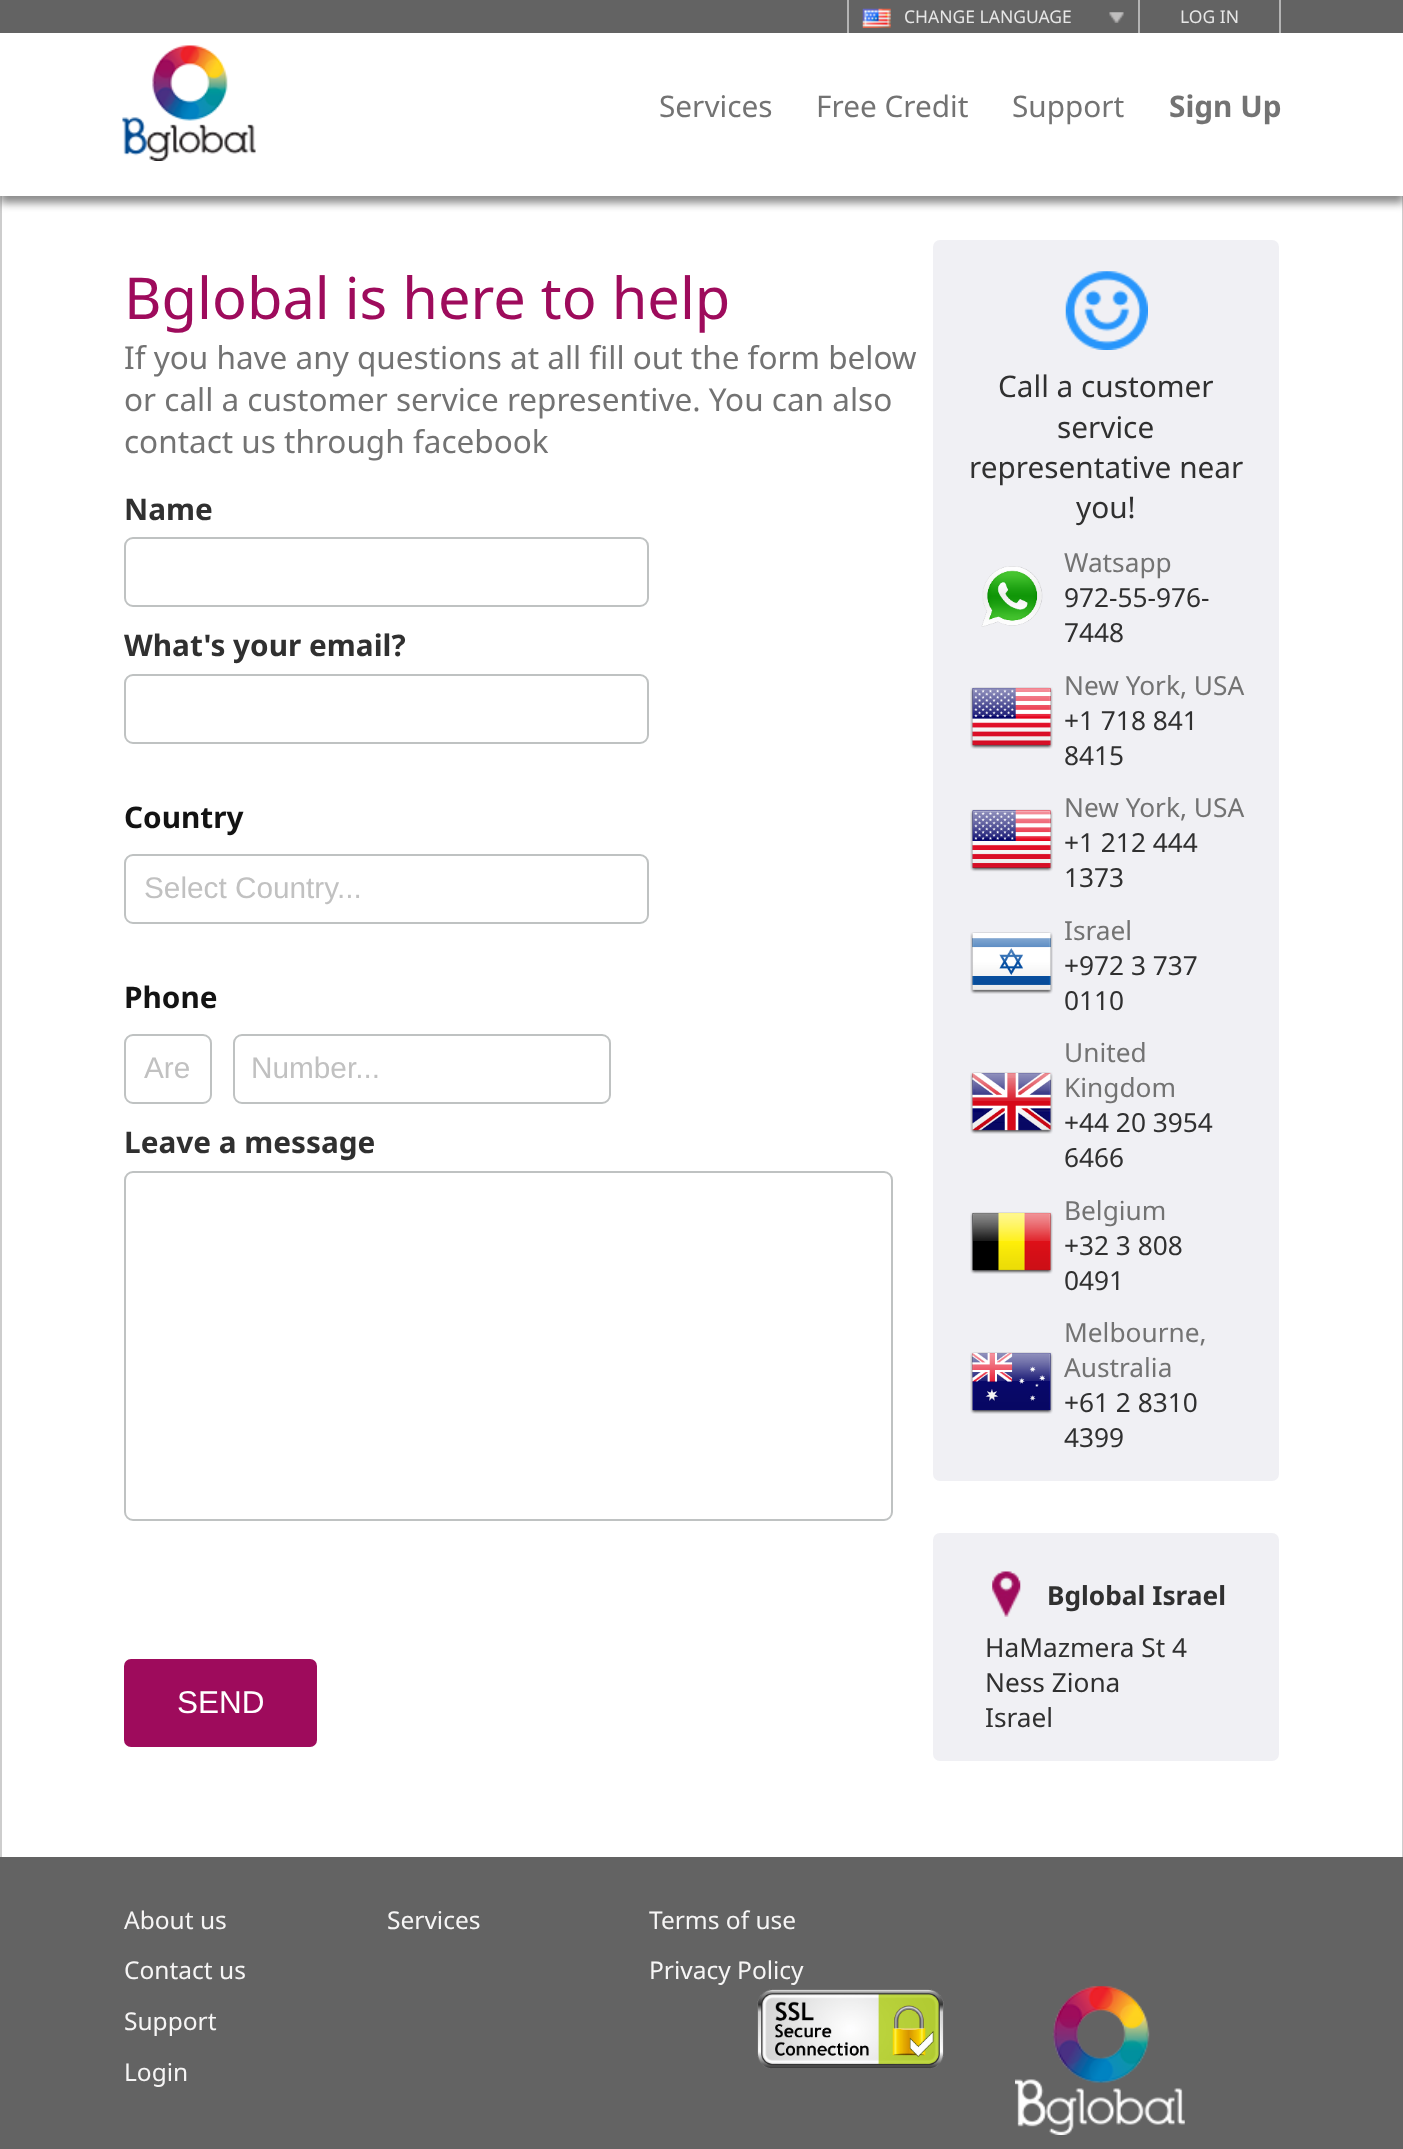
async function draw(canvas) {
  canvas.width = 1403;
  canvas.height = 2149;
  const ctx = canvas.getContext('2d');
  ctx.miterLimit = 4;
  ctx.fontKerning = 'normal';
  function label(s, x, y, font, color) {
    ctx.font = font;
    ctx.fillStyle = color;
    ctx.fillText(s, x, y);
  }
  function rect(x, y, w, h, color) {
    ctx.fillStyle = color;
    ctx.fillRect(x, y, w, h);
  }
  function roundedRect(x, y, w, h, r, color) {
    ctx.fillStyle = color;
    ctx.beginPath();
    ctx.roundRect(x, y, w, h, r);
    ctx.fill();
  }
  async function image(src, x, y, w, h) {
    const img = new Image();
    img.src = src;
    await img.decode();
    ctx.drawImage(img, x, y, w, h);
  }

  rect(0, 0, 1403, 2149, '#fff');
  rect(1402, 196, 1, 1661, '#cdcdcd');
  rect(0, 196, 2, 1661, '#cdcdcd');
  ctx.fillStyle = '#636363bf';
  ctx.filter = 'blur(4.5px)';
  ctx.beginPath();
  ctx.rect(0, 7, 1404, 196);
  ctx.fill();
  ctx.filter = 'none';
  rect(0, 33, 1403, 163, '#fff');
  rect(0, 0, 1403, 33, '#636363');
  rect(1279, 0, 2, 33, '#b4b4b4');
  rect(847, 0, 2, 33, '#b4b4b4');
  await image('assets/img1.png', 1109, 12, 15, 11);
  await image('assets/img2.png', 862, 8, 29, 20);
  label('CHANGE LANGUAGE', 904, 23, '17.5px Noto Sans', '#e6e6e6');
  rect(1138, 0, 2, 33, '#b4b4b4');
  label('LOG IN', 1180, 23, '17.5px Noto Sans', '#e6e6e6');
  await image('assets/img3.png', 122, 45, 134, 116);
  label('Services', 659, 117, '29.75px Noto Sans', '#737373');
  label('Free Credit', 816, 117, '29.75px Noto Sans', '#737373');
  label('Support', 1012, 117, '29.75px Noto Sans', '#737373');
  label('Sign Up', 1169, 117, 'bold 29.75px Noto Sans', '#737373');
  label('Bglobal is here to help', 124, 319, '57.75px Noto Sans', '#9e0b5c');
  label('If you have any questions at all fill out the form below', 124, 369, '31.5px Noto Sans', '#737373');
  label('or call a customer service representive. You can also', 124, 411, '31.5px Noto Sans', '#737373');
  label('contact us through facebook', 124, 453, '31.5px Noto Sans', '#737373');
  label('Name', 124, 520, 'bold 29.75px Noto Sans', '#303030');
  ctx.beginPath();
  ctx.roundRect(125, 538, 523, 68, 8);
  ctx.strokeStyle = '#bfc2c2';
  ctx.lineWidth = 2;
  ctx.stroke();
  label('What\'s your email?', 124, 656, 'bold 29.75px Noto Sans', '#303030');
  ctx.beginPath();
  ctx.roundRect(125, 675, 523, 68, 8);
  ctx.stroke();
  label('Country', 124, 828, 'bold 29.75px Noto Sans', '#131313');
  ctx.beginPath();
  ctx.roundRect(125, 855, 523, 68, 8);
  ctx.stroke();
  label('Select Country...', 144, 898, '29.75px Liberation Sans', '#c1c1c1');
  label('Phone', 124, 1008, 'bold 29.75px Noto Sans', '#131313');
  ctx.beginPath();
  ctx.roundRect(125, 1035, 86, 68, 8);
  ctx.stroke();
  label('Are', 144, 1078, '29.75px Liberation Sans', '#c1c1c1');
  ctx.beginPath();
  ctx.roundRect(234, 1035, 376, 68, 8);
  ctx.stroke();
  label('Number...', 251, 1078, '29.75px Liberation Sans', '#c1c1c1');
  label('Leave a message', 124, 1153, 'bold 29.75px Noto Sans', '#303030');
  ctx.beginPath();
  ctx.roundRect(125, 1172, 767, 348, 8);
  ctx.stroke();
  roundedRect(124, 1659, 193, 88, 7, '#9e0b5c');
  label('SEND', 177, 1713, '31.5px Liberation Sans', '#fff');
  roundedRect(933, 240, 346, 1241, 7, '#f0f0f4');
  await image('assets/img4.png', 1065, 271, 83, 79);
  label('Call a customer', 998, 397, '29.75px Noto Sans', '#303030');
  label('service', 1057, 438, '29.75px Noto Sans', '#303030');
  label('representative near', 969, 478, '29.75px Noto Sans', '#303030');
  label('you!', 1076, 518, '29.75px Noto Sans', '#303030');
  await image('assets/img5.png', 981, 566, 62, 61);
  label('Watsapp', 1064, 572, '26.25px Noto Sans', '#737373');
  label('972-55-976-', 1064, 607, '26.25px Noto Sans', '#303030');
  label('7448', 1064, 642, '26.25px Noto Sans', '#303030');
  await image('assets/img6.png', 970, 687, 83, 62);
  label('New York, USA', 1064, 695, '26.25px Noto Sans', '#737373');
  label('+1 718 841', 1064, 730, '26.25px Noto Sans', '#303030');
  label('8415', 1064, 765, '26.25px Noto Sans', '#303030');
  await image('assets/img7.png', 970, 809, 83, 63);
  label('New York, USA', 1064, 817, '26.25px Noto Sans', '#737373');
  label('+1 212 444', 1064, 852, '26.25px Noto Sans', '#303030');
  label('1373', 1064, 887, '26.25px Noto Sans', '#303030');
  await image('assets/img8.png', 970, 932, 83, 62);
  label('Israel', 1064, 940, '26.25px Noto Sans', '#737373');
  label('+972 3 737', 1064, 975, '26.25px Noto Sans', '#303030');
  label('0110', 1064, 1010, '26.25px Noto Sans', '#303030');
  await image('assets/img9.png', 970, 1072, 83, 62);
  label('United', 1064, 1062, '26.25px Noto Sans', '#737373');
  label('Kingdom', 1064, 1097, '26.25px Noto Sans', '#737373');
  label('+44 20 3954', 1064, 1132, '26.25px Noto Sans', '#303030');
  label('6466', 1064, 1167, '26.25px Noto Sans', '#303030');
  await image('assets/img10.png', 970, 1212, 83, 62);
  label('Belgium', 1064, 1220, '26.25px Noto Sans', '#737373');
  label('+32 3 808', 1064, 1255, '26.25px Noto Sans', '#303030');
  label('0491', 1064, 1290, '26.25px Noto Sans', '#303030');
  await image('assets/img11.png', 970, 1352, 83, 62);
  label('Melbourne,', 1064, 1342, '26.25px Noto Sans', '#737373');
  label('Australia', 1064, 1377, '26.25px Noto Sans', '#737373');
  label('+61 2 8310', 1064, 1412, '26.25px Noto Sans', '#303030');
  label('4399', 1064, 1447, '26.25px Noto Sans', '#303030');
  roundedRect(933, 1533, 346, 228, 7, '#f0f0f4');
  await image('assets/img12.png', 992, 1571, 29, 46);
  label('Bglobal Israel', 1047, 1605, 'bold 26.25px Noto Sans', '#303030');
  label('HaMazmera St 4', 985, 1657, '26.25px Noto Sans', '#303030');
  label('Ness Ziona', 985, 1692, '26.25px Noto Sans', '#303030');
  label('Israel', 985, 1727, '26.25px Noto Sans', '#303030');
  rect(0, 1857, 1403, 292, '#636363');
  label('About us', 124, 1929, '24.5px Noto Sans', '#f6f5f5');
  label('Contact us', 124, 1979, '24.5px Noto Sans', '#f6f5f5');
  label('Support', 124, 2030, '24.5px Noto Sans', '#f6f5f5');
  label('Login', 124, 2081, '24.5px Noto Sans', '#f6f5f5');
  label('Services', 387, 1929, '24.5px Noto Sans', '#f6f5f5');
  label('Terms of use', 649, 1929, '24.5px Noto Sans', '#f6f5f5');
  label('Privacy Policy', 649, 1979, '24.5px Noto Sans', '#f6f5f5');
  await image('assets/img13.png', 757, 1989, 187, 80);
  await image('assets/img14.png', 1015, 1986, 170, 149);
}

draw(document.querySelector('canvas'));
